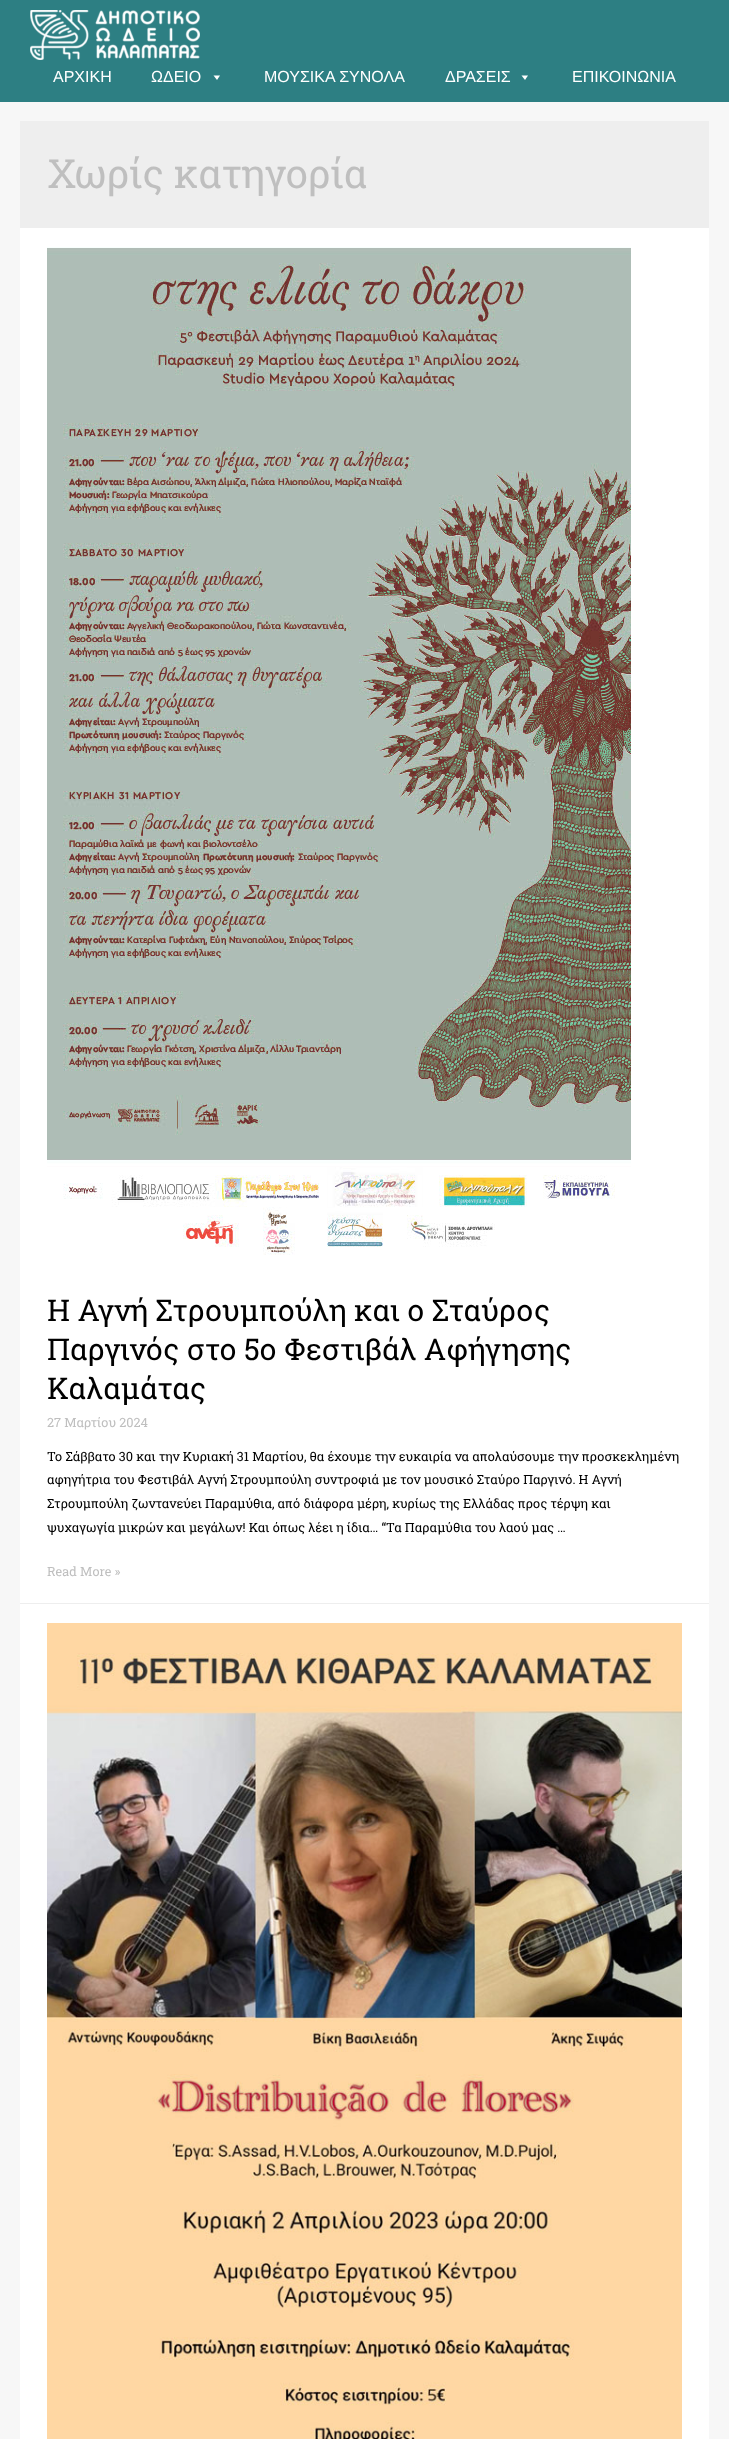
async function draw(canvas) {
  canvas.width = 729;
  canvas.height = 2439;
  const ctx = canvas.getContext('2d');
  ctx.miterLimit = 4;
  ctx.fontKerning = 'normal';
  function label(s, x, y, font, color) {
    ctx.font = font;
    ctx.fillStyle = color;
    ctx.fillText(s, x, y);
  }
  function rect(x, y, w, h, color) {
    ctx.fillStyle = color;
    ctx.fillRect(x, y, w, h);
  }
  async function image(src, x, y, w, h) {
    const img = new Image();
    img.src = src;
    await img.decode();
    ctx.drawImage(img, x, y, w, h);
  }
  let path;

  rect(0, 0, 729, 2439, '#f7f7f7');
  rect(0, 0, 729, 102, '#2d7f83');
  await image('assets/img1.png', 30, 10, 170, 50);
  label('ΑΡΧΙΚΗ', 53, 82, '16px Liberation Sans', '#fff');
  label('ΩΔΕΙΟ', 151, 82, '16px Liberation Sans', '#fff');
  path = new Path2D('M220 75.5L217 80L213.5 75.5Z');
  ctx.fill(path);
  label('ΜΟΥΣΙΚΑ ΣΥΝΟΛΑ', 264, 82, '16px Liberation Sans', '#fff');
  label('ΔΡΑΣΕΙΣ', 445, 82, '16px Liberation Sans', '#fff');
  path = new Path2D('M528 75.5L525 80L521.5 75.5Z');
  ctx.fill(path);
  label('ΕΠΙΚΟΙΝΩΝΙΑ', 572, 82, '16px Liberation Sans', '#fff');
  rect(20, 121, 689, 107, '#eee');
  label('Χωρίς κατηγορία', 47, 188, '40px Roboto Slab', '#bfbfbf');
  rect(20, 228, 689, 1375, '#fff');
  rect(20, 1603, 689, 1, '#eee');
  await image('assets/img2.png', 47, 247, 584, 1008);
  label('Η Αγνή Στρουμπούλη και ο Σταύρος', 47, 1321, '30px Roboto Slab', '#000');
  label('Παργινός στο 5ο Φεστιβάλ Αφήγησης', 47, 1360, '30px Roboto Slab', '#000');
  label('Καλαμάτας', 47, 1399, '30px Roboto Slab', '#000');
  label('27 Μαρτίου 2024', 47, 1427, '12.75px Roboto Slab', '#bfbfbf');
  label('Το Σάββατο 30 και την Κυριακή 31 Μαρτίου, θα έχουμε την ευκαιρία να απολαύσουμε την προσκεκλημένη', 47, 1461, '12.75px Roboto Slab', '#000');
  label('αφηγήτρια του Φεστιβάλ Αγνή Στρουμπούλη συντροφιά με τον μουσικό Σταύρο Παργινό. Η Αγνή', 47, 1484, '12.75px Roboto Slab', '#000');
  label('Στρουμπούλη ζωντανεύει Παραμύθια, από διάφορα μέρη, κυρίως της Ελλάδας προς τέρψη και', 47, 1508, '12.75px Roboto Slab', '#000');
  label('ψυχαγωγία μικρών και μεγάλων! Και όπως λέει η ίδια… “Τα Παραμύθια του λαού μας …', 47, 1532, '12.75px Roboto Slab', '#000');
  label('Read More »', 47, 1576, '12.75px Roboto Slab', '#bfbfbf');
  rect(20, 1604, 689, 835, '#fff');
  await image('assets/img3.png', 47, 1623, 635, 816);
}

draw(document.querySelector('canvas'));
